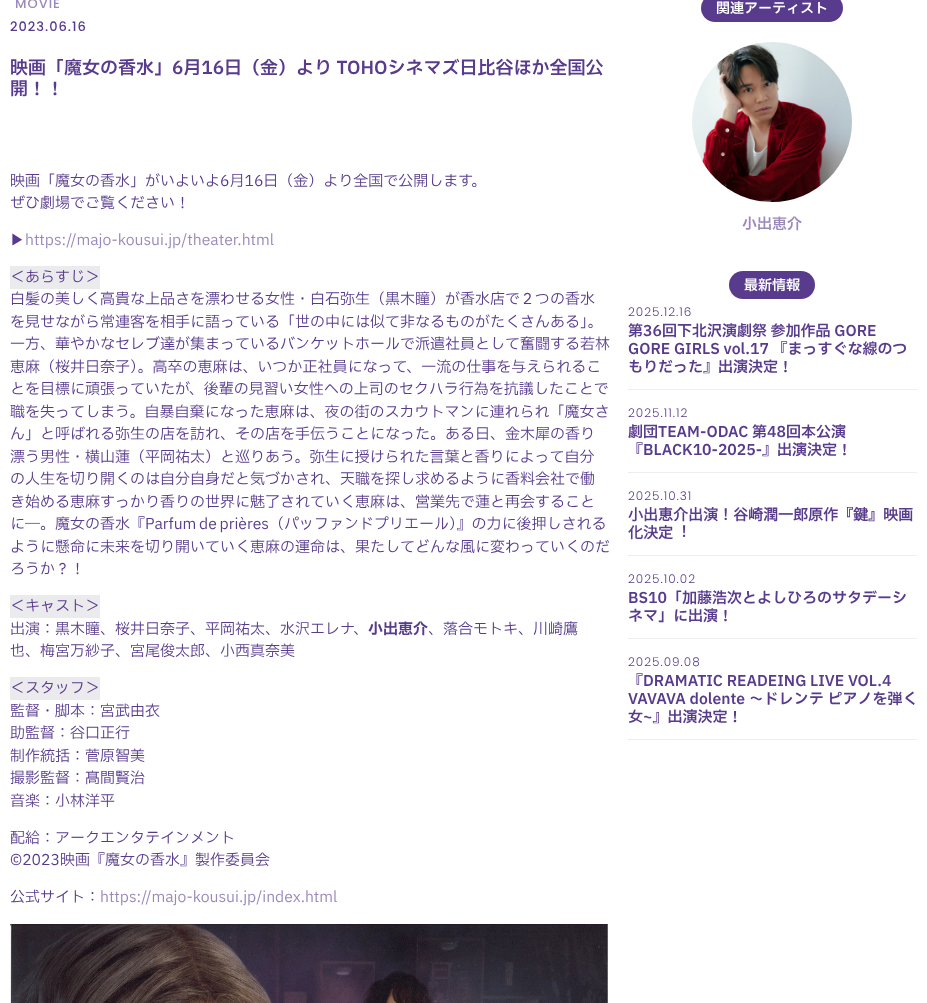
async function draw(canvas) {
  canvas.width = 927;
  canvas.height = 1003;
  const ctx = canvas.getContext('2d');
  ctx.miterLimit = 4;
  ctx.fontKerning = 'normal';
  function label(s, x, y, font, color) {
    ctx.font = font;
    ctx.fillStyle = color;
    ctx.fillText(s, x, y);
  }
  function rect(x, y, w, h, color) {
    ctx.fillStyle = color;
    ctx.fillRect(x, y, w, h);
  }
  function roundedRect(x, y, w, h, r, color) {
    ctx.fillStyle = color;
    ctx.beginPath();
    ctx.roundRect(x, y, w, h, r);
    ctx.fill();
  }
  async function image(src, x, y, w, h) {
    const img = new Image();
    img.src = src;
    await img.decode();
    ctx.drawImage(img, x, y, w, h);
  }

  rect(0, 0, 927, 1003, '#fff');
  ctx.letterSpacing = '1px';
  label('MOVIE', 15, 8, '500 13px Poppins', '#9b89ba');
  label('2023.06.16', 10, 31, '500 13px Poppins', '#583b8c');
  ctx.letterSpacing = '0px';
  label('映画「魔女の香水」6月16日（金）より TOHOシネマズ日比谷ほか全国公', 10, 74, '600 18px IBM Plex Sans JP', '#583b8c');
  label('開！！', 10, 95, '600 18px IBM Plex Sans JP', '#583b8c');
  label('映画「魔女の香水」がいよいよ6月16日（金）より全国で公開します。', 10, 186, '15px IBM Plex Sans JP', '#583b8c');
  label('ぜひ劇場でご覧ください！', 10, 208, '15px IBM Plex Sans JP', '#583b8c');
  label('▶︎', 10, 245, '500 15px WenQuanYi Zen Hei', '#583b8c');
  label('https://majo-kousui.jp/theater.html', 25, 245, '15px IBM Plex Sans JP', '#9b89ba');
  rect(10, 266, 90, 23, '#ebebed');
  label('＜あらすじ＞', 10, 282, '15px IBM Plex Sans JP', '#583b8c');
  label('白髪の美しく高貴な上品さを漂わせる女性・白石弥生（黒木瞳）が香水店で２つの香水', 10, 304, '15px IBM Plex Sans JP', '#583b8c');
  label('を見せながら常連客を相手に語っている「世の中には似て非なるものがたくさんある」。', 10, 327, '15px IBM Plex Sans JP', '#583b8c');
  label('一方、華やかなセレブ達が集まっているバンケットホールで派遣社員として奮闘する若林', 10, 349, '15px IBM Plex Sans JP', '#583b8c');
  label('恵麻（桜井日奈子）。高卒の恵麻は、いつか正社員になって、一流の仕事を与えられるこ', 10, 372, '15px IBM Plex Sans JP', '#583b8c');
  label('とを目標に頑張っていたが、後輩の見習い女性への上司のセクハラ行為を抗議したことで', 10, 394, '15px IBM Plex Sans JP', '#583b8c');
  label('職を失ってしまう。自暴自棄になった恵麻は、夜の街のスカウトマンに連れられ「魔女さ', 10, 417, '15px IBM Plex Sans JP', '#583b8c');
  label('ん」と呼ばれる弥生の店を訪れ、その店を手伝うことになった。ある日、金木犀の香り', 10, 439, '15px IBM Plex Sans JP', '#583b8c');
  label('漂う男性・横山蓮（平岡祐太）と巡りあう。弥生に授けられた言葉と香りによって自分', 10, 462, '15px IBM Plex Sans JP', '#583b8c');
  label('の人生を切り開くのは自分自身だと気づかされ、天職を探し求めるように香料会社で働', 10, 484, '15px IBM Plex Sans JP', '#583b8c');
  label('き始める恵麻すっかり香りの世界に魅了されていく恵麻は、営業先で蓮と再会すること', 10, 507, '15px IBM Plex Sans JP', '#583b8c');
  ctx.wordSpacing = '-1px';
  label('に―。魔女の香水『Parfum de prières（パッファンドプリエール）』の力に後押しされる', 10, 529, '15px IBM Plex Sans JP', '#583b8c');
  ctx.wordSpacing = '0px';
  label('ように懸命に未来を切り開いていく恵麻の運命は、果たしてどんな風に変わっていくのだ', 10, 552, '15px IBM Plex Sans JP', '#583b8c');
  label('ろうか？！', 10, 574, '15px IBM Plex Sans JP', '#583b8c');
  rect(10, 595, 90, 23, '#ebebed');
  label('＜キャスト＞', 10, 611, '15px IBM Plex Sans JP', '#583b8c');
  label('出演：黒木瞳、桜井日奈子、平岡祐太、水沢エレナ、', 10, 634, '15px IBM Plex Sans JP', '#583b8c');
  label('小出恵介', 368, 634, 'bold 15px IBM Plex Sans JP', '#583b8c');
  label('、落合モトキ、川崎鷹', 428, 634, '15px IBM Plex Sans JP', '#583b8c');
  label('也、梅宮万紗子、宮尾俊太郎、小西真奈美', 10, 656, '15px IBM Plex Sans JP', '#583b8c');
  rect(10, 677, 90, 23, '#ebebed');
  label('＜スタッフ＞', 10, 693, '15px IBM Plex Sans JP', '#583b8c');
  label('監督・脚本：宮武由衣', 10, 716, '15px IBM Plex Sans JP', '#583b8c');
  label('助監督：谷口正行', 10, 738, '15px IBM Plex Sans JP', '#583b8c');
  label('制作統括：菅原智美', 10, 761, '15px IBM Plex Sans JP', '#583b8c');
  label('撮影監督：髙間賢治', 10, 783, '15px IBM Plex Sans JP', '#583b8c');
  label('音楽：小林洋平', 10, 806, '15px IBM Plex Sans JP', '#583b8c');
  label('配給：アークエンタテインメント', 10, 843, '15px IBM Plex Sans JP', '#583b8c');
  label('©2023映画『魔女の香水』製作委員会', 10, 865, '15px IBM Plex Sans JP', '#583b8c');
  label('公式サイト：', 10, 902, '15px IBM Plex Sans JP', '#583b8c');
  label('https://majo-kousui.jp/index.html', 100, 902, '15px IBM Plex Sans JP', '#9b89ba');
  await image('assets/img1.png', 10, 924, 598, 79);
  roundedRect(701, -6, 142, 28, 14, '#583b8c');
  label('関連アーティスト', 716, 13, '600 14px IBM Plex Sans JP', '#fff');
  await image('assets/img2.png', 692, 42, 160, 160);
  label('小出恵介', 742, 229, '600 15px IBM Plex Sans JP', '#9b89ba');
  roundedRect(729, 271, 86, 28, 14, '#583b8c');
  label('最新情報', 744, 290, '600 14px IBM Plex Sans JP', '#fff');
  rect(628, 389, 289, 1, '#eee');
  ctx.letterSpacing = '1px';
  label('2025.12.16', 628, 316, '300 12px Poppins', '#583b8c');
  ctx.letterSpacing = '0px';
  label('第36回下北沢演劇祭 参加作品 GORE', 628, 336, '600 15px IBM Plex Sans JP', '#583b8c');
  label('GORE GIRLS vol.17 『まっすぐな線のつ', 628, 354, '600 15px IBM Plex Sans JP', '#583b8c');
  label('もりだった』出演決定！', 628, 372, '600 15px IBM Plex Sans JP', '#583b8c');
  rect(628, 472, 289, 1, '#eee');
  ctx.letterSpacing = '1px';
  label('2025.11.12', 628, 417, '300 12px Poppins', '#583b8c');
  ctx.letterSpacing = '0px';
  label('劇団TEAM-ODAC 第48回本公演', 628, 437, '600 15px IBM Plex Sans JP', '#583b8c');
  label('『BLACK10-2025-』出演決定！', 628, 455, '600 15px IBM Plex Sans JP', '#583b8c');
  rect(628, 555, 289, 1, '#eee');
  ctx.letterSpacing = '1px';
  label('2025.10.31', 628, 500, '300 12px Poppins', '#583b8c');
  ctx.letterSpacing = '0px';
  label('小出恵介出演！⾕崎潤⼀郎原作『鍵』映画', 628, 520, 'bold 15px Noto Sans CJK JP', '#583b8c');
  label('化決定︕', 628, 538, 'bold 15px Noto Sans CJK JP', '#583b8c');
  rect(628, 638, 289, 1, '#eee');
  ctx.letterSpacing = '1px';
  label('2025.10.02', 628, 583, '300 12px Poppins', '#583b8c');
  ctx.letterSpacing = '0px';
  label('BS10「加藤浩次とよしひろのサタデーシ', 628, 603, '600 15px IBM Plex Sans JP', '#583b8c');
  label('ネマ」に出演！', 628, 621, '600 15px IBM Plex Sans JP', '#583b8c');
  rect(628, 739, 289, 1, '#eee');
  ctx.letterSpacing = '1px';
  label('2025.09.08', 628, 666, '300 12px Poppins', '#583b8c');
  ctx.letterSpacing = '0px';
  label('『DRAMATIC READEING LIVE VOL.4', 628, 686, '600 15px IBM Plex Sans JP', '#583b8c');
  label('VAVAVA dolente ～ドレンテ ピアノを弾く', 628, 704, '600 15px IBM Plex Sans JP', '#583b8c');
  label('女~』出演決定！', 628, 722, '600 15px IBM Plex Sans JP', '#583b8c');
}

draw(document.querySelector('canvas'));
